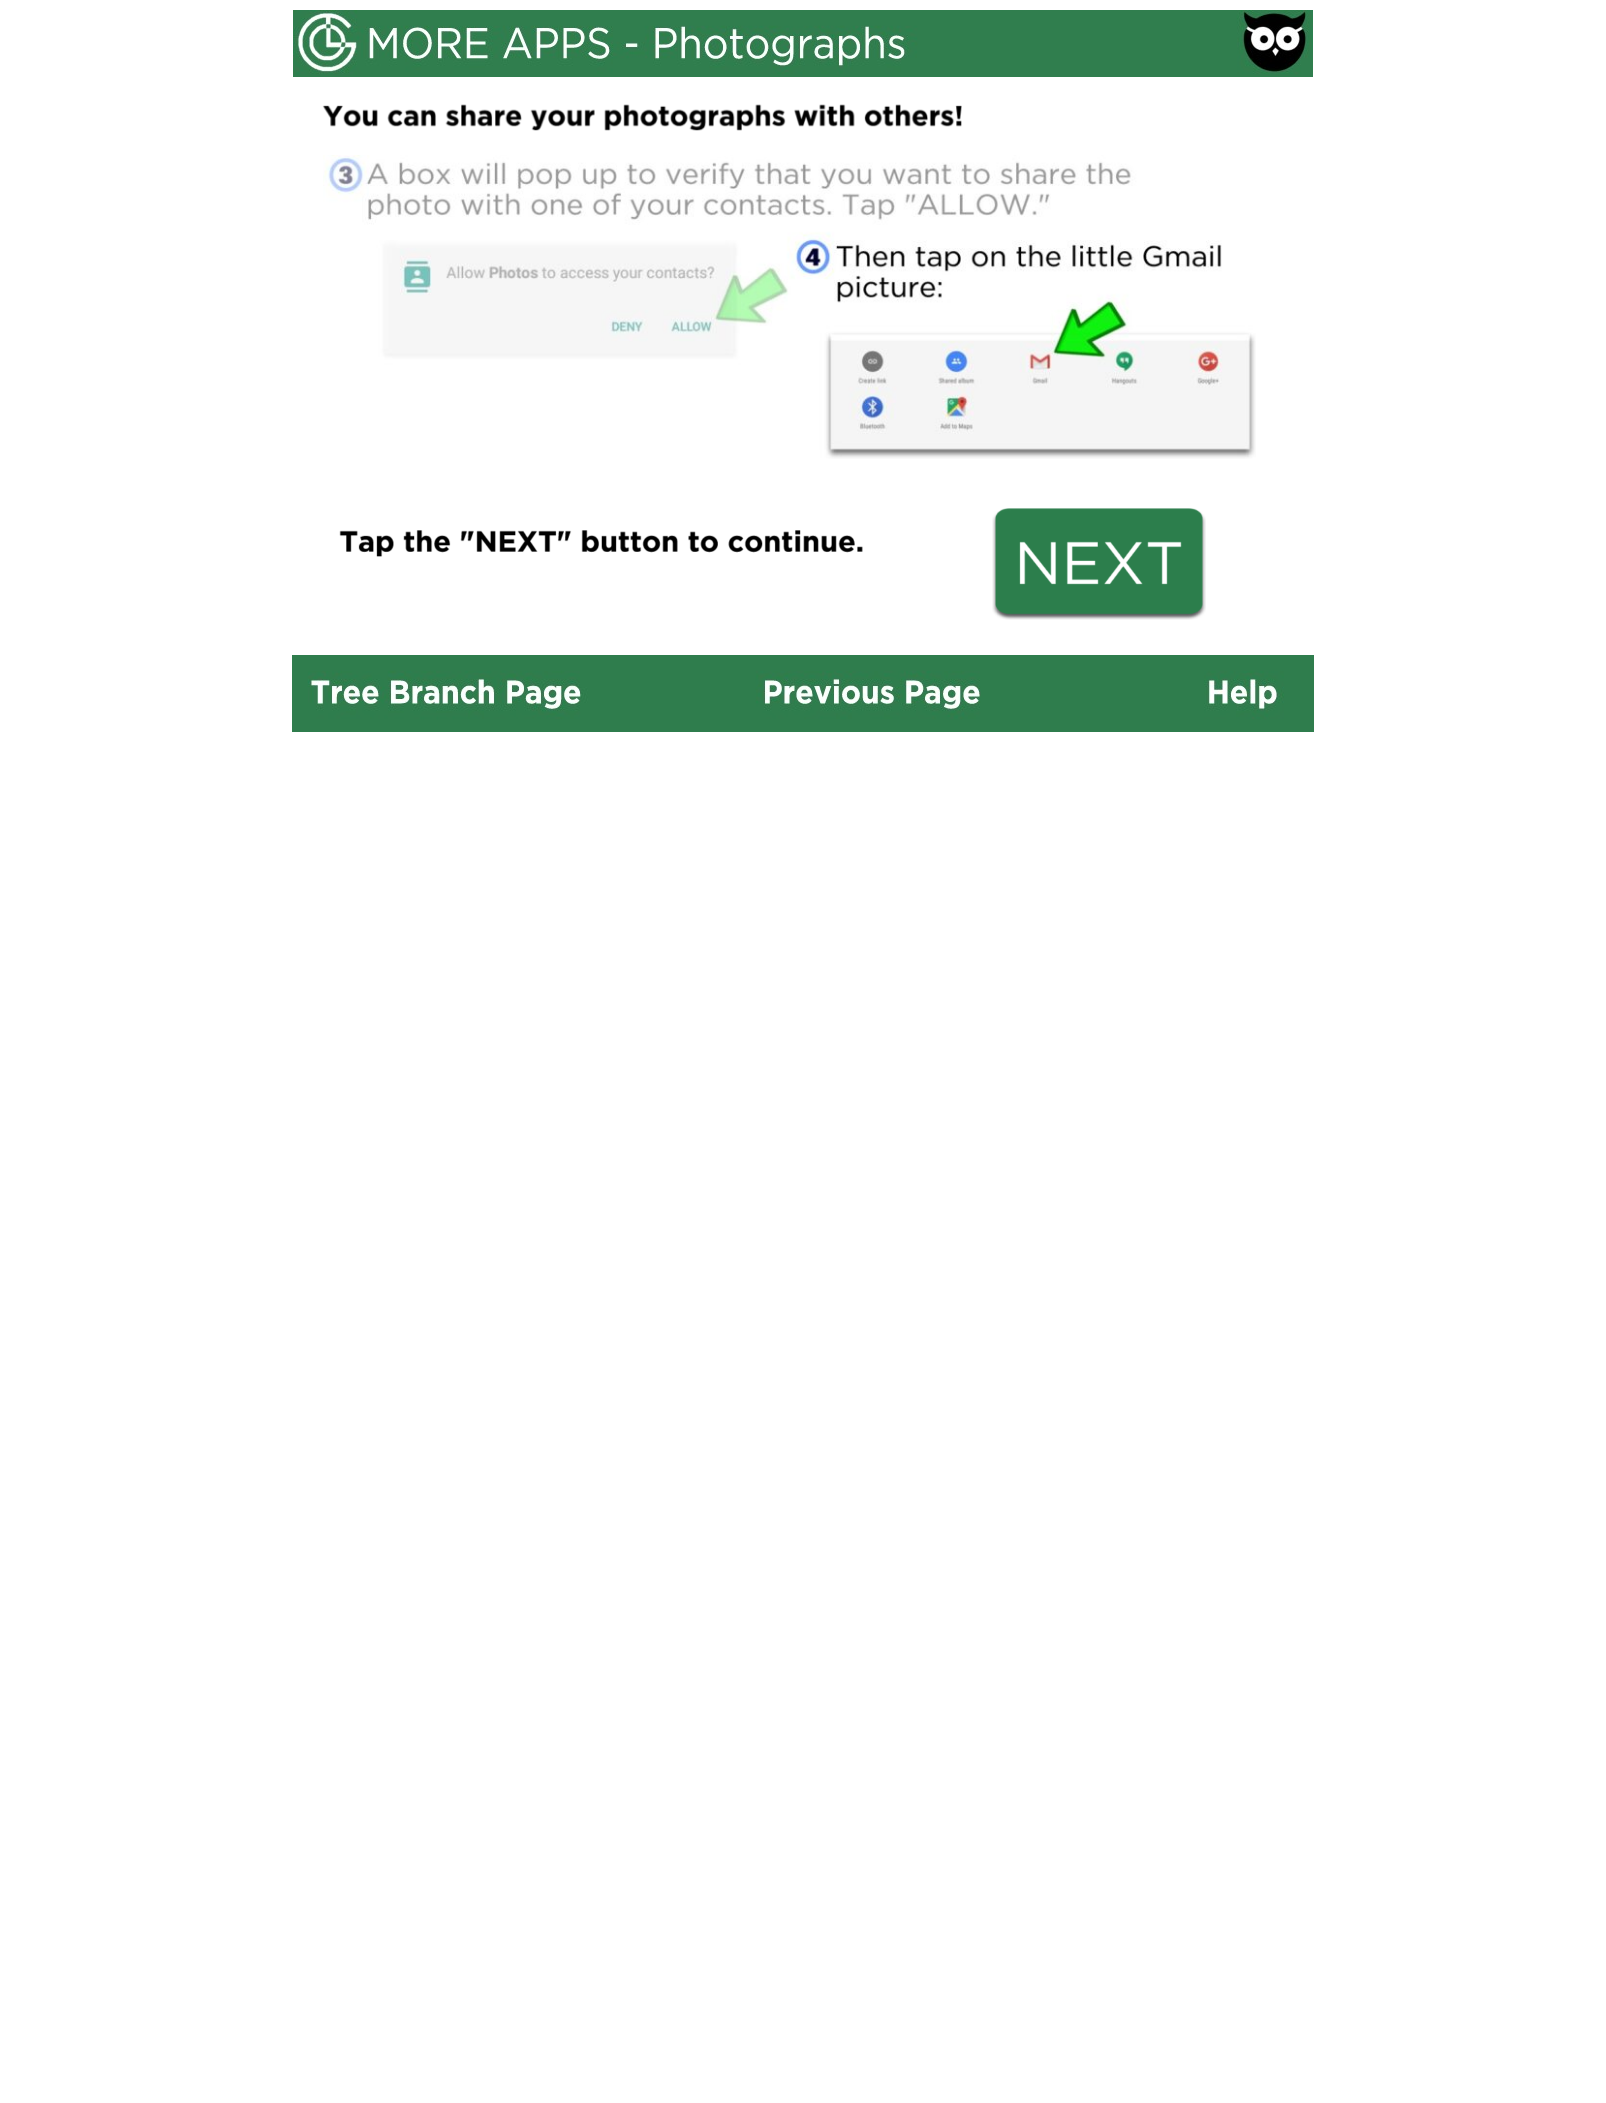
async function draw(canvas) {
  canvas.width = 1606;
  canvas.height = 2103;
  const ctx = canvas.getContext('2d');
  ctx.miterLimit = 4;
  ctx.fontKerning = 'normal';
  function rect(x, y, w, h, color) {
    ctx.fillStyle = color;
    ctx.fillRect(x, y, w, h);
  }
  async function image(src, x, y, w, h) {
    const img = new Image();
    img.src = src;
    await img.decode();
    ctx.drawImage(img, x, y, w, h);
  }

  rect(0, 0, 1606, 2103, '#fff');
  await image('assets/img1.png', 293, 10, 1020, 67);
  await image('assets/img2.png', 322, 104, 640, 27);
  await image('assets/img3.png', 323, 155, 933, 304);
  await image('assets/img4.png', 339, 530, 524, 27);
  await image('assets/img5.png', 992, 508, 214, 112);
  await image('assets/img6.png', 292, 655, 1022, 77);
}

draw(document.querySelector('canvas'));
